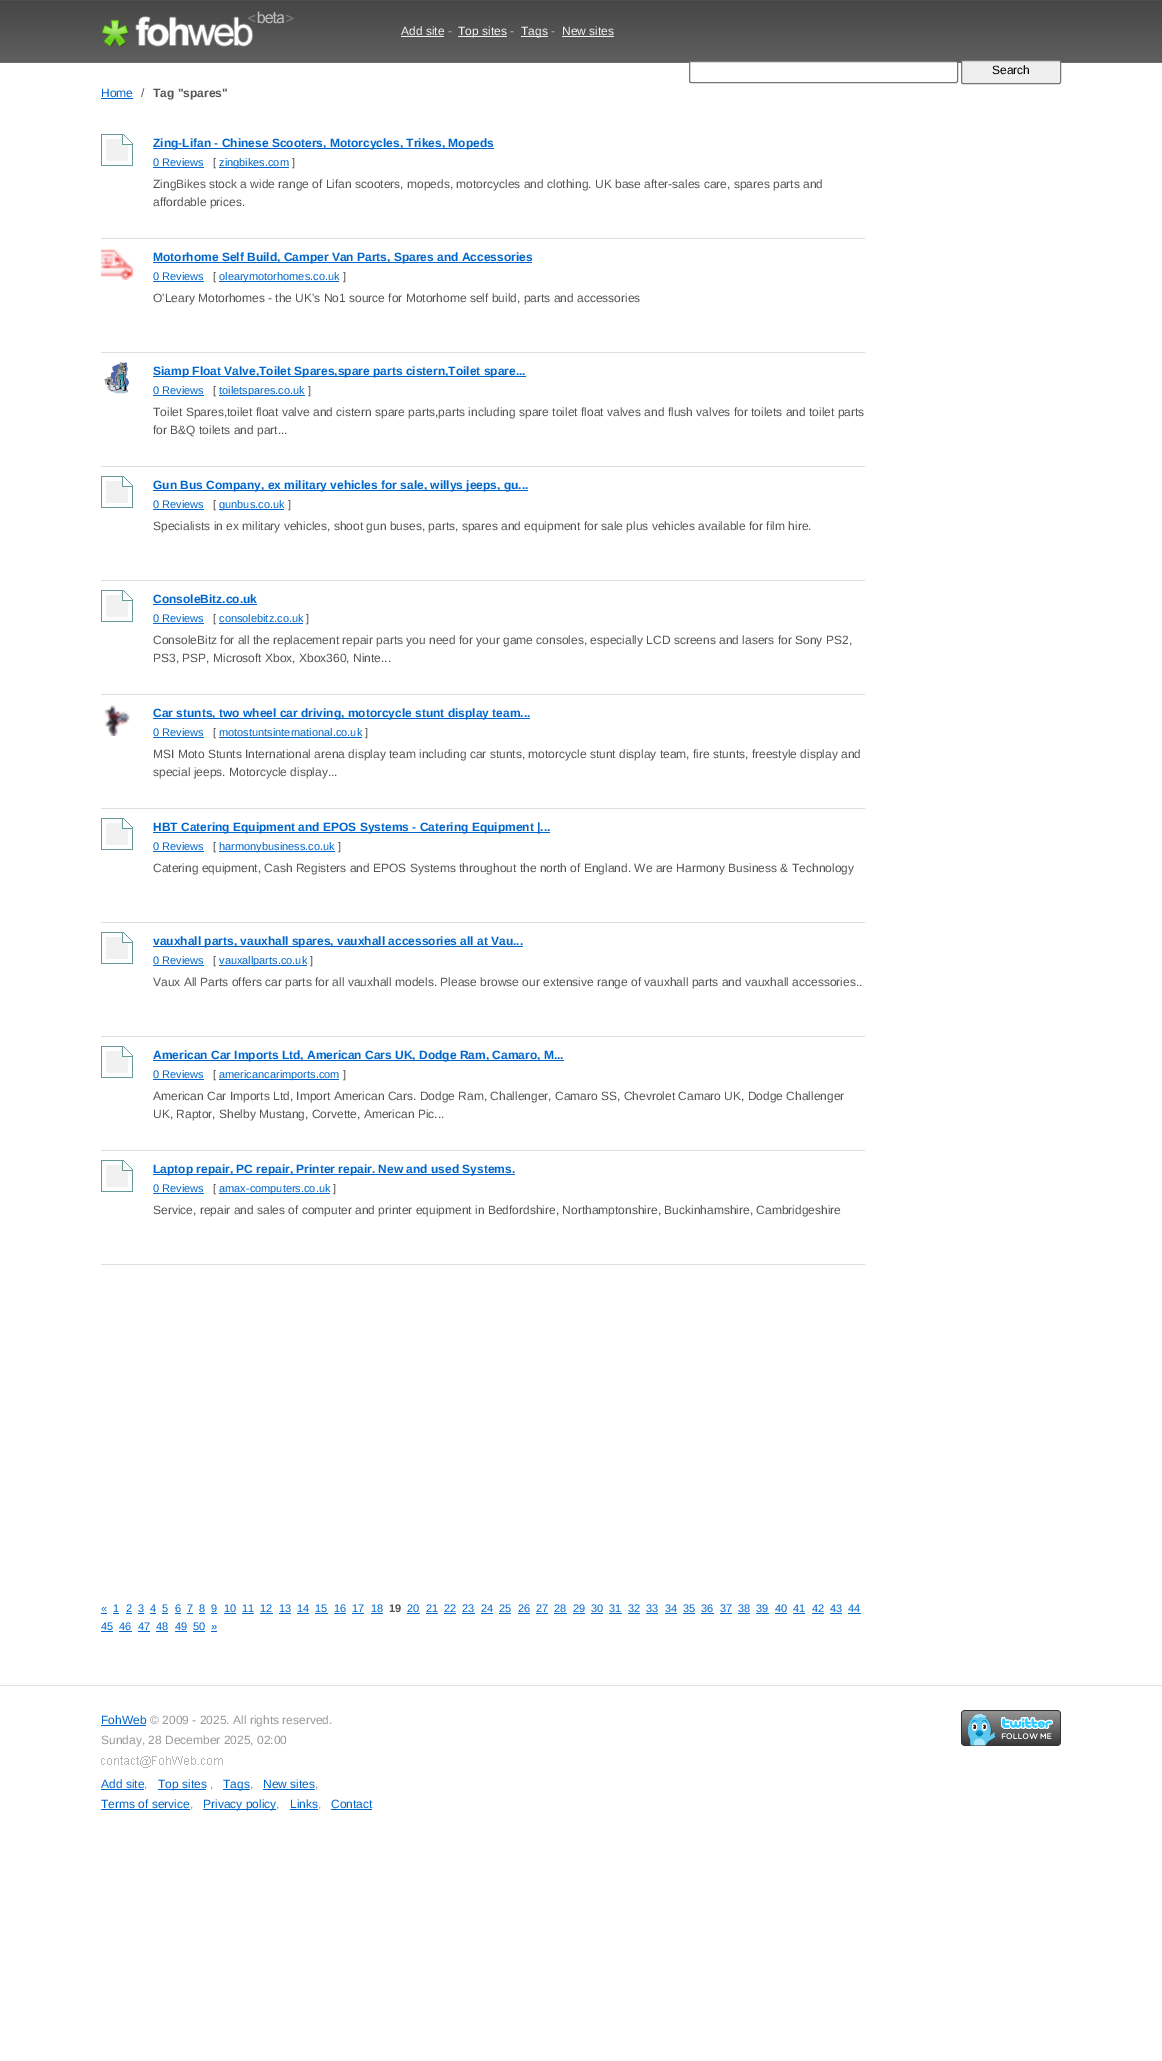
%!PS-Adobe-3.0
%%BoundingBox: 0 0 1162 2061
%%LanguageLevel: 3
%%Pages: 1
%%EndComments
%%BeginProlog
/setink { dup -16 bitshift 255 div exch dup -8 bitshift 255 and 255 div exch 255 and 255 div setrgbcolor } def
/usefont { [ exch dup neg 0 0 3 -1 roll 0 0 ] selectfont } def
/rrect { 5 dict begin { /r /h /w /y /x } { exch def } forall
  x r add y moveto x w add y 2 copy h add r arct x w add y h add x 1 index r arct
  x y h add x y r arct x y 2 copy exch w add exch r arct closepath end } def
/drawimage { 5 dict begin { /h /w /y /x /name } { exch def } forall
  gsave x y translate w h scale
  w h 8 [w 0 0 h 0 0] name (r) file false 3 colorimage grestore end } def
%%EndProlog
%%BeginSetup
<< /PageSize [1162 2061] >> setpagedevice
%%EndSetup
%%Page: 1 1
0 2061 translate 1 -1 scale
4 setmiterlimit
16#FFFFFF setink
0 0 1162 2061 rectfill
(img1.raw) 0 0 1162 63 drawimage
(img2.raw) 101 11 193 36 drawimage
/LiberationSans-Regular 12 usefont
16#F3F3F3 setink
401 35 moveto (Add site) show
401 36 43 1 rectfill
16#B6B6B6 setink
448 35 moveto (-) show
16#F3F3F3 setink
458 36 49 1 rectfill
458 35 moveto (Top sites) show
16#B6B6B6 setink
510 35 moveto (-) show
16#F3F3F3 setink
521 36 27 1 rectfill
521 35 moveto (Tags) show
16#B6B6B6 setink
551 35 moveto (-) show
16#F3F3F3 setink
562 35 moveto (New sites) show
562 36 52 1 rectfill
16#FFFFFF setink
689.5 61.5 268 21 1.5 rrect gsave fill grestore
16#767676 setink
stroke
16#EFEFEF setink
961.5 60.5 99 23 1.5 rrect gsave fill grestore
16#767676 setink
stroke
16#000000 setink
992 74 moveto (Search) show
16#0066CC setink
101 97 moveto (Home) show
101 98 32 1 rectfill
16#555555 setink
141 97 moveto (/) show
/LiberationSans-Bold 12 usefont
153 97 moveto (Tag "spares") show
16#DEDEDE setink
101 238 764 1 rectfill
(img3.raw) 101 134 32 32 drawimage
16#0066CC setink
153 148 341 1 rectfill
153 147 moveto (Zing-Lifan - Chinese Scooters, Motorcycles, Trikes, Mopeds) show
/LiberationSans-Regular 11 usefont
153 166 moveto (0 Reviews) show
153 167 51 1 rectfill
16#555555 setink
213 166 moveto ([) show
16#0066CC setink
219 167 70 1 rectfill
219 166 moveto (zingbikes.com) show
16#555555 setink
292 166 moveto (]) show
/LiberationSans-Regular 12 usefont
153 188 moveto (ZingBikes stock a wide range of Lifan scooters, mopeds, motorcycles and clothing. UK base after-sales care, spares parts and) show
153 206 moveto (affordable prices.) show
16#DEDEDE setink
101 352 764 1 rectfill
(img4.raw) 101 248 32 32 drawimage
16#0066CC setink
153 262 379 1 rectfill
/LiberationSans-Bold 12 usefont
153 261 moveto (Motorhome Self Build, Camper Van Parts, Spares and Accessories) show
/LiberationSans-Regular 11 usefont
153 280 moveto (0 Reviews) show
153 281 51 1 rectfill
16#555555 setink
213 280 moveto ([) show
16#0066CC setink
219 281 120 1 rectfill
219 280 moveto (olearymotorhomes.co.uk) show
16#555555 setink
343 280 moveto (]) show
/LiberationSans-Regular 12 usefont
153 302 moveto (O'Leary Motorhomes - the UK's No1 source for Motorhome self build, parts and accessories) show
16#DEDEDE setink
101 466 764 1 rectfill
(img5.raw) 104 362 26 32 drawimage
16#0066CC setink
153 376 373 1 rectfill
/LiberationSans-Bold 12 usefont
153 375 moveto (Siamp Float Valve,Toilet Spares,spare parts cistern,Toilet spare...) show
/LiberationSans-Regular 11 usefont
153 394 moveto (0 Reviews) show
153 395 51 1 rectfill
16#555555 setink
213 394 moveto ([) show
16#0066CC setink
219 395 86 1 rectfill
219 394 moveto (toiletspares.co.uk) show
16#555555 setink
308 394 moveto (]) show
/LiberationSans-Regular 12 usefont
153 416 moveto (Toilet Spares,toilet float valve and cistern spare parts,parts including spare toilet float valves and flush valves for toilets and toilet parts) show
153 434 moveto (for B&Q toilets and part...) show
16#DEDEDE setink
101 580 764 1 rectfill
(img3.raw) 101 476 32 32 drawimage
16#0066CC setink
153 490 375 1 rectfill
/LiberationSans-Bold 12 usefont
153 489 moveto (Gun Bus Company, ex military vehicles for sale, willys jeeps, gu...) show
/LiberationSans-Regular 11 usefont
153 508 moveto (0 Reviews) show
153 509 51 1 rectfill
16#555555 setink
213 508 moveto ([) show
16#0066CC setink
219 509 65 1 rectfill
219 508 moveto (gunbus.co.uk) show
16#555555 setink
288 508 moveto (]) show
/LiberationSans-Regular 12 usefont
153 530 moveto (Specialists in ex military vehicles, shoot gun buses, parts, spares and equipment for sale plus vehicles available for film hire.) show
16#DEDEDE setink
101 694 764 1 rectfill
(img3.raw) 101 590 32 32 drawimage
/LiberationSans-Bold 12 usefont
16#0066CC setink
153 603 moveto (ConsoleBitz.co.uk) show
153 604 104 1 rectfill
/LiberationSans-Regular 11 usefont
153 622 moveto (0 Reviews) show
153 623 51 1 rectfill
16#555555 setink
213 622 moveto ([) show
16#0066CC setink
219 622 moveto (consolebitz.co.uk) show
219 623 84 1 rectfill
16#555555 setink
306 622 moveto (]) show
/LiberationSans-Regular 12 usefont
153 644 moveto (ConsoleBitz for all the replacement repair parts you need for your game consoles, especially LCD screens and lasers for Sony PS2,) show
153 662 moveto (PS3, PSP, Microsoft Xbox, Xbox360, Ninte...) show
16#DEDEDE setink
101 808 764 1 rectfill
(img6.raw) 104 705 26 31 drawimage
16#0066CC setink
153 718 377 1 rectfill
/LiberationSans-Bold 12 usefont
153 717 moveto (Car stunts, two wheel car driving, motorcycle stunt display team...) show
/LiberationSans-Regular 11 usefont
153 736 moveto (0 Reviews) show
153 737 51 1 rectfill
16#555555 setink
213 736 moveto ([) show
16#0066CC setink
219 736 moveto (motostuntsinternational.co.uk) show
219 737 143 1 rectfill
16#555555 setink
365 736 moveto (]) show
/LiberationSans-Regular 12 usefont
153 758 moveto (MSI Moto Stunts International arena display team including car stunts, motorcycle stunt display team, fire stunts, freestyle display and) show
153 776 moveto (special jeeps. Motorcycle display...) show
16#DEDEDE setink
101 922 764 1 rectfill
(img3.raw) 101 818 32 32 drawimage
16#0066CC setink
153 832 397 1 rectfill
/LiberationSans-Bold 12 usefont
153 831 moveto (HBT Catering Equipment and EPOS Systems - Catering Equipment |...) show
/LiberationSans-Regular 11 usefont
153 850 moveto (0 Reviews) show
153 851 51 1 rectfill
16#555555 setink
213 850 moveto ([) show
16#0066CC setink
219 851 116 1 rectfill
219 850 moveto (harmonybusiness.co.uk) show
16#555555 setink
338 850 moveto (]) show
/LiberationSans-Regular 12 usefont
153 872 moveto (Catering equipment, Cash Registers and EPOS Systems throughout the north of England. We are Harmony Business & Technology) show
16#DEDEDE setink
101 1036 764 1 rectfill
(img3.raw) 101 932 32 32 drawimage
16#0066CC setink
153 946 370 1 rectfill
/LiberationSans-Bold 12 usefont
153 945 moveto (vauxhall parts, vauxhall spares, vauxhall accessories all at Vau...) show
/LiberationSans-Regular 11 usefont
153 964 moveto (0 Reviews) show
153 965 51 1 rectfill
16#555555 setink
213 964 moveto ([) show
16#0066CC setink
219 965 88 1 rectfill
219 964 moveto (vauxallparts.co.uk) show
16#555555 setink
310 964 moveto (]) show
/LiberationSans-Regular 12 usefont
153 986 moveto (Vaux All Parts offers car parts for all vauxhall models. Please browse our extensive range of vauxhall parts and vauxhall accessories..) show
16#DEDEDE setink
101 1150 764 1 rectfill
(img3.raw) 101 1046 32 32 drawimage
16#0066CC setink
153 1060 411 1 rectfill
/LiberationSans-Bold 12 usefont
153 1059 moveto (American Car Imports Ltd, American Cars UK, Dodge Ram, Camaro, M...) show
/LiberationSans-Regular 11 usefont
153 1078 moveto (0 Reviews) show
153 1079 51 1 rectfill
16#555555 setink
213 1078 moveto ([) show
16#0066CC setink
219 1079 120 1 rectfill
219 1078 moveto (americancarimports.com) show
16#555555 setink
343 1078 moveto (]) show
/LiberationSans-Regular 12 usefont
153 1100 moveto (American Car Imports Ltd, Import American Cars. Dodge Ram, Challenger, Camaro SS, Chevrolet Camaro UK, Dodge Challenger) show
153 1118 moveto (UK, Raptor, Shelby Mustang, Corvette, American Pic...) show
16#DEDEDE setink
101 1264 764 1 rectfill
(img3.raw) 101 1160 32 32 drawimage
16#0066CC setink
153 1174 362 1 rectfill
/LiberationSans-Bold 12 usefont
153 1173 moveto (Laptop repair, PC repair, Printer repair. New and used Systems.) show
/LiberationSans-Regular 11 usefont
153 1192 moveto (0 Reviews) show
153 1193 51 1 rectfill
16#555555 setink
213 1192 moveto ([) show
16#0066CC setink
219 1193 111 1 rectfill
219 1192 moveto (amax-computers.co.uk) show
16#555555 setink
333 1192 moveto (]) show
/LiberationSans-Regular 12 usefont
153 1214 moveto (Service, repair and sales of computer and printer equipment in Bedfordshire, Northamptonshire, Buckinhamshire, Cambridgeshire) show
/LiberationSans-Regular 11 usefont
16#0066CC setink
101 1612 moveto («) show
101 1613 6 1 rectfill
113 1612 moveto (1) show
113 1613 6 1 rectfill
126 1612 moveto (2) show
126 1613 6 1 rectfill
138 1612 moveto (3) show
138 1613 6 1 rectfill
150 1612 moveto (4) show
150 1613 6 1 rectfill
162 1612 moveto (5) show
162 1613 6 1 rectfill
175 1612 moveto (6) show
175 1613 6 1 rectfill
187 1612 moveto (7) show
187 1613 6 1 rectfill
199 1612 moveto (8) show
199 1613 6 1 rectfill
211 1612 moveto (9) show
211 1613 6 1 rectfill
224 1612 moveto (10) show
224 1613 12 1 rectfill
242 1612 moveto (11) show
242 1613 12 1 rectfill
260 1612 moveto (12) show
260 1613 13 1 rectfill
279 1612 moveto (13) show
279 1613 12 1 rectfill
297 1612 moveto (14) show
297 1613 12 1 rectfill
315 1612 moveto (15) show
315 1613 13 1 rectfill
334 1612 moveto (16) show
334 1613 12 1 rectfill
352 1612 moveto (17) show
352 1613 12 1 rectfill
371 1612 moveto (18) show
371 1613 12 1 rectfill
/LiberationSans-Bold 11 usefont
16#555555 setink
389 1612 moveto (19) show
/LiberationSans-Regular 11 usefont
16#0066CC setink
407 1612 moveto (20) show
407 1613 13 1 rectfill
426 1612 moveto (21) show
426 1613 12 1 rectfill
444 1612 moveto (22) show
444 1613 12 1 rectfill
462 1612 moveto (23) show
462 1613 13 1 rectfill
481 1612 moveto (24) show
481 1613 12 1 rectfill
499 1612 moveto (25) show
499 1613 12 1 rectfill
518 1612 moveto (26) show
518 1613 12 1 rectfill
536 1612 moveto (27) show
536 1613 12 1 rectfill
554 1612 moveto (28) show
554 1613 13 1 rectfill
573 1612 moveto (29) show
573 1613 12 1 rectfill
591 1612 moveto (30) show
591 1613 12 1 rectfill
609 1612 moveto (31) show
609 1613 13 1 rectfill
628 1612 moveto (32) show
628 1613 12 1 rectfill
646 1612 moveto (33) show
646 1613 12 1 rectfill
665 1612 moveto (34) show
665 1613 12 1 rectfill
683 1612 moveto (35) show
683 1613 12 1 rectfill
701 1612 moveto (36) show
701 1613 13 1 rectfill
720 1612 moveto (37) show
720 1613 12 1 rectfill
738 1612 moveto (38) show
738 1613 12 1 rectfill
756 1612 moveto (39) show
756 1613 13 1 rectfill
775 1612 moveto (40) show
775 1613 12 1 rectfill
793 1612 moveto (41) show
793 1613 12 1 rectfill
812 1612 moveto (42) show
812 1613 12 1 rectfill
830 1612 moveto (43) show
830 1613 12 1 rectfill
848 1612 moveto (44) show
848 1613 13 1 rectfill
101 1630 moveto (45) show
101 1631 12 1 rectfill
119 1630 moveto (46) show
119 1631 13 1 rectfill
138 1630 moveto (47) show
138 1631 12 1 rectfill
156 1630 moveto (48) show
156 1631 12 1 rectfill
175 1630 moveto (49) show
175 1631 12 1 rectfill
193 1630 moveto (50) show
193 1631 12 1 rectfill
211 1630 moveto (») show
211 1631 6 1 rectfill
16#E2E2E2 setink
0 1685 1162 1 rectfill
/LiberationSans-Regular 12 usefont
16#0066CC setink
101 1724 moveto (FohWeb) show
101 1725 45 1 rectfill
16#999999 setink
150 1724 moveto (© 2009 - 2025. All rights reserved.) show
101 1744 moveto (Sunday, 28 December 2025, 02:00) show
(img7.raw) 101 1756 122 12 drawimage
16#0066CC setink
101 1788 moveto (Add site) show
101 1789 43 1 rectfill
16#999999 setink
144 1788 moveto (,) show
16#0066CC setink
158 1789 48 1 rectfill
158 1788 moveto (Top sites) show
16#999999 setink
210 1788 moveto (,) show
16#0066CC setink
223 1789 27 1 rectfill
223 1788 moveto (Tags) show
16#999999 setink
250 1788 moveto (,) show
16#0066CC setink
263 1788 moveto (New sites) show
263 1789 52 1 rectfill
16#999999 setink
315 1788 moveto (,) show
16#0066CC setink
101 1808 moveto (Terms of service) show
101 1809 89 1 rectfill
16#999999 setink
190 1808 moveto (,) show
16#0066CC setink
203 1809 73 1 rectfill
203 1808 moveto (Privacy policy) show
16#999999 setink
276 1808 moveto (,) show
16#0066CC setink
290 1808 moveto (Links) show
290 1809 28 1 rectfill
16#999999 setink
318 1808 moveto (,) show
16#0066CC setink
331 1808 moveto (Contact) show
331 1809 41 1 rectfill
(img8.raw) 961 1710 100 36 drawimage
showpage
%%EOF
